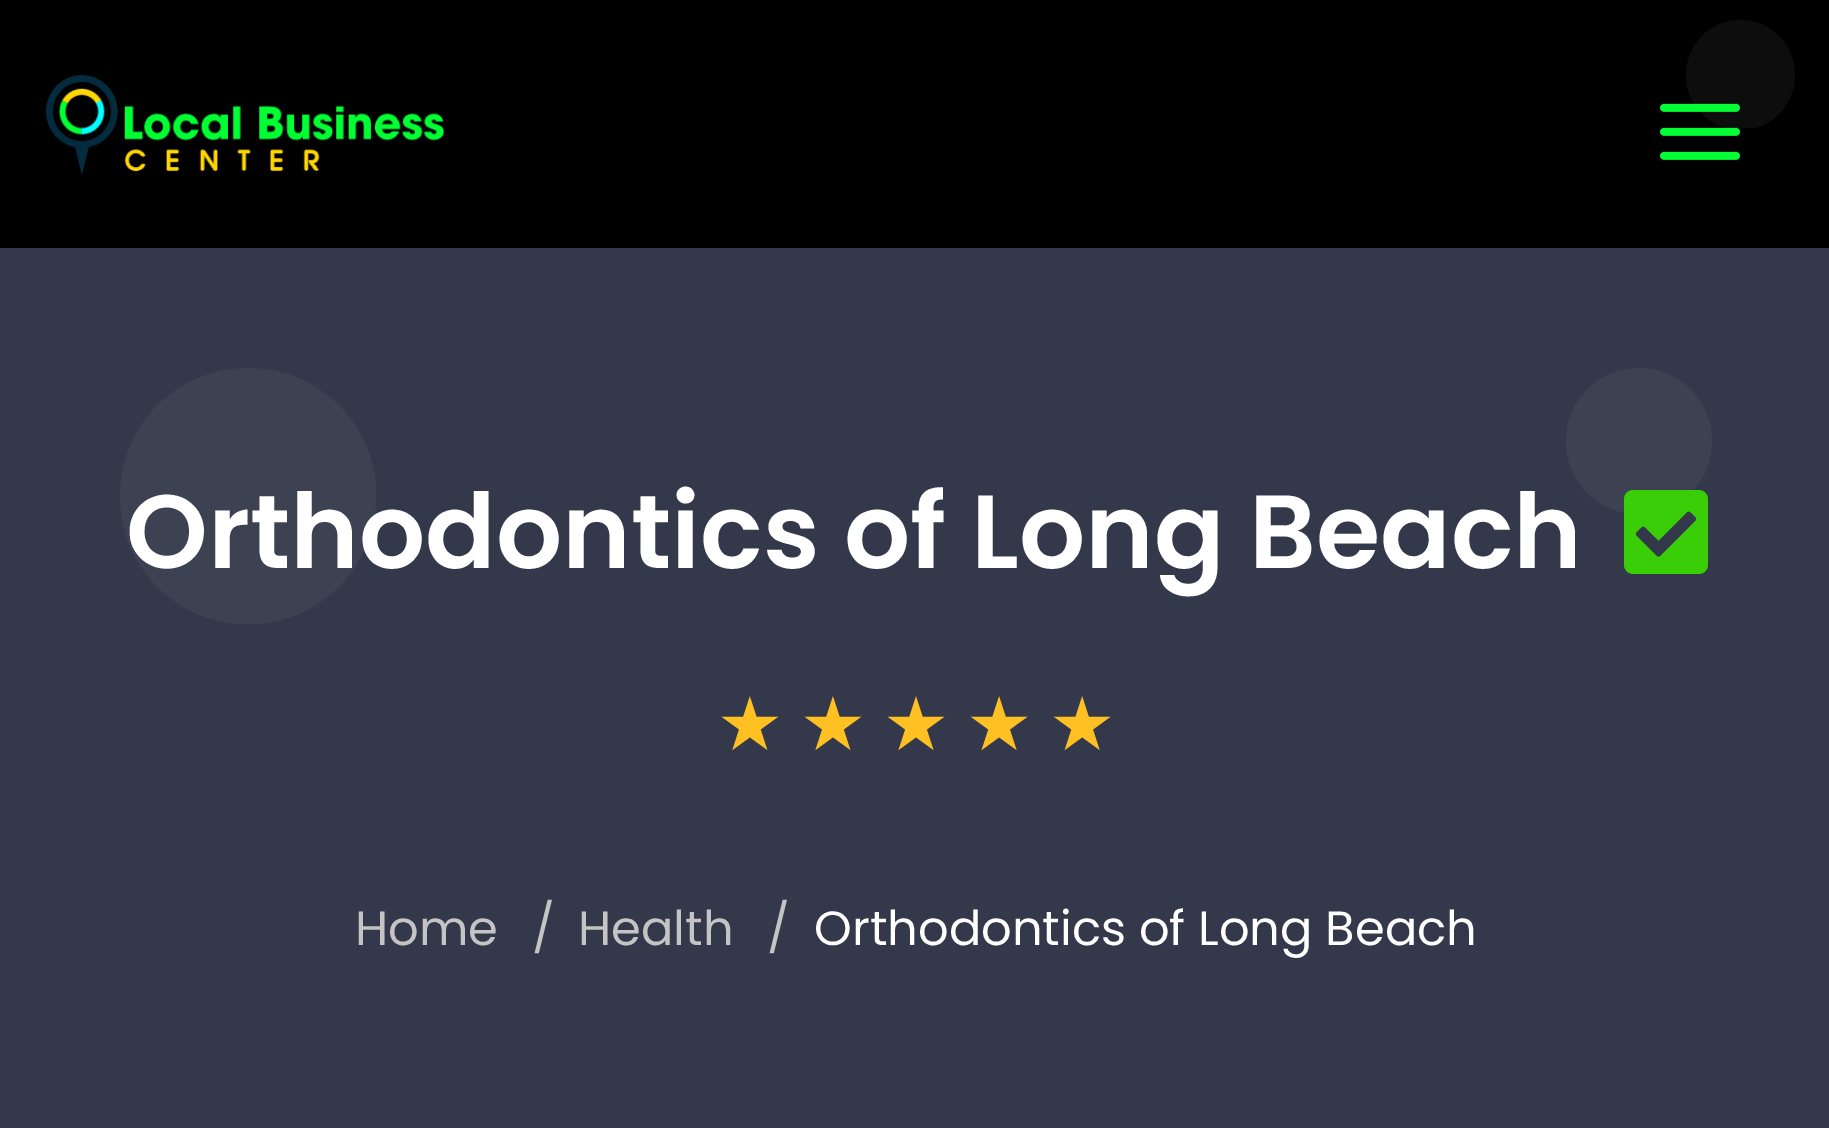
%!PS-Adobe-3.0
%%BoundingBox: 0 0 1829 1128
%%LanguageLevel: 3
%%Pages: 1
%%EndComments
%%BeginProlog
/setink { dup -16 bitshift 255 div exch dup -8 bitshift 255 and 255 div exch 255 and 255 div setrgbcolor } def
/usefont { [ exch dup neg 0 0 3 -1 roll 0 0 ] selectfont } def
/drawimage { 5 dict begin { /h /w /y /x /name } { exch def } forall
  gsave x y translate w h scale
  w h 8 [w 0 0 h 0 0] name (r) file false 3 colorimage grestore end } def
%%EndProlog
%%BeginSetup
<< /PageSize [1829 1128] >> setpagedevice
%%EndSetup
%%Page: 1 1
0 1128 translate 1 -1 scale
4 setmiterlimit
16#33394A setink
0 0 1829 1128 rectfill
16#000000 setink
0 0 1829 248 rectfill
(img1.raw) 46 75 398 100 drawimage
16#0D0D0D setink
1740 20 moveto 1771 20 1795 45 1795 75 curveto 1795 100 1778 122 1755 128 curveto 1726 128 lineto 1703 122 1686 100 1686 75 curveto 1686 45 1710 20 1740 20 curveto closepath fill
(img2.raw) 1660 103 80 57 drawimage
16#3D4253 setink
248 368 moveto 316 368 371 420 376 486 curveto 376 506 lineto 371 569 321 619 258 624 curveto 238 624 lineto 172 619 120 564 120 496 curveto 120 425 177 368 248 368 curveto closepath fill
1639 368 moveto 1679 368 1712 401 1712 441 curveto 1712 482 1679 514 1639 514 curveto 1598 514 1566 482 1566 441 curveto 1566 401 1598 368 1639 368 curveto closepath fill
/Poppins-SemiBold 104 usefont
16#FFFFFF setink
126 568 moveto (Orthodontics of Long Beach) show
(img3.raw) 1624 490 84 84 drawimage
(img4.raw) 721 696 390 55 drawimage
/Poppins-Regular 48 usefont
16#C4C4C4 setink
[
    [(Home) 355 945]
    [(/) 532 945]
    [(Health) 578 945]
    [(/) 767 945]
] { aload pop moveto show } forall
16#FFFFFF setink
814 945 moveto (Orthodontics of Long Beach) show
showpage
%%EOF
